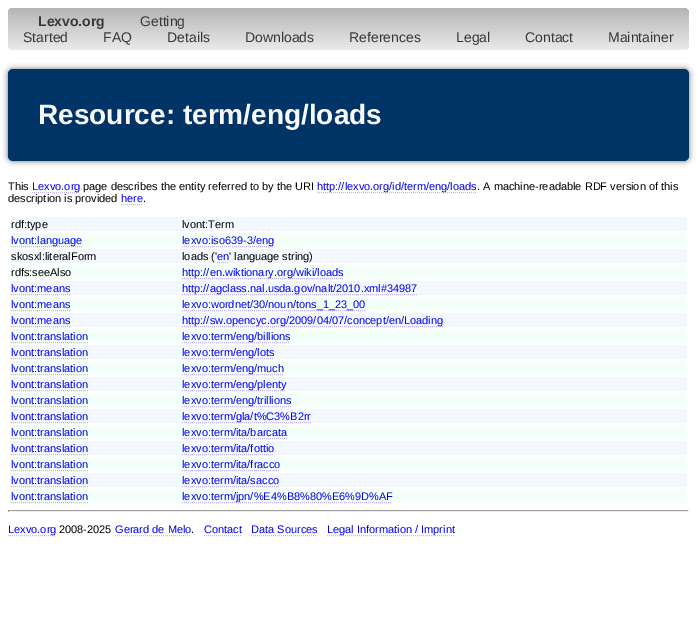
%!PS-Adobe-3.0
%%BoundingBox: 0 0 697 628
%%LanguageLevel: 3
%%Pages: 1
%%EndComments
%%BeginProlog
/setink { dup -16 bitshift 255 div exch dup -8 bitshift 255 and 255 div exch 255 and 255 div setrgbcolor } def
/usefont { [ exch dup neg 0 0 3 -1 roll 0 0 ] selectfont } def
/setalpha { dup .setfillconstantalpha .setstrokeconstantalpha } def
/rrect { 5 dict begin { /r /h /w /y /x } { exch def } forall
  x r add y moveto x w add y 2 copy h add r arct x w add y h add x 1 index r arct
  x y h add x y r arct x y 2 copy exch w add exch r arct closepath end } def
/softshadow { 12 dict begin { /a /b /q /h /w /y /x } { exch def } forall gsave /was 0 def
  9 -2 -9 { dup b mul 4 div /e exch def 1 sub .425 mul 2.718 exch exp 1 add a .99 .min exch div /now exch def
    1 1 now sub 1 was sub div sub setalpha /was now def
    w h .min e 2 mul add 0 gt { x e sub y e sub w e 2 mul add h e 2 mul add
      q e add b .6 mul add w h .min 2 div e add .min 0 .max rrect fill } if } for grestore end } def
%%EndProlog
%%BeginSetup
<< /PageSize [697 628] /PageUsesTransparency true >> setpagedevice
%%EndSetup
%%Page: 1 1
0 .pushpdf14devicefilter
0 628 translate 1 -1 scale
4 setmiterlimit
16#FFFFFF setink
0 0 697 628 rectfill
gsave 8 8 681 42 5 rrect clip newpath
<< /ShadingType 2 /ColorSpace /DeviceRGB /Coords [349 8 349 50] /Extend [true true] /Function << /FunctionType 2 /Domain [0 1] /C0 [0.71 0.71 0.71] /C1 [0.918 0.918 0.918] /N 1 >> >> shfill grestore
/LiberationSans-Bold 14 usefont
16#383838 setink
38 26 moveto (Lexvo.org) show
/LiberationSans-Regular 14 usefont
[
    [(Getting) 140 26]
    [(Started) 23 42]
    [(FAQ) 103 42]
    [(Details) 167 42]
    [(Downloads) 245 42]
    [(References) 349 42]
    [(Legal) 456 42]
    [(Contact) 525 42]
    [(Maintainer) 608 42]
] { aload pop moveto show } forall
16#000000 setink
8 69 681 92 5 3 0.6 softshadow
16#003366 setink
8 69 681 92 5 rrect fill
/LiberationSans-Bold 28 usefont
16#F8F8F8 setink
38 124 moveto (Resource: term/eng/loads) show
/LiberationSans-Regular 11 usefont
16#000000 setink
8 190 moveto (This) show
16#BFB6FF setink
[1 1] 0 setdash
32 192.5 moveto 80 192.5 lineto stroke
16#0000EE setink
32 190 moveto (Lexvo.org) show
16#000000 setink
83 190 moveto (page describes the entity referred to by the URI) show
16#BFB6FF setink
317 192.5 moveto 477 192.5 lineto stroke
16#0000EE setink
317 190 moveto (http://lexvo.org/id/term/eng/loads) show
16#000000 setink
477 190 moveto (. A machine-readable RDF version of this) show
8 202 moveto (description is provided) show
16#0000EE setink
121 202 moveto (here) show
16#BFB6FF setink
121 204.5 moveto 143 204.5 lineto stroke
16#000000 setink
143 202 moveto (.) show
16#F3F8FF setink
10 217 677 14 rectfill
16#000000 setink
11 228 moveto (rdf:type) show
182 228 moveto (lvont:Term) show
16#F3FFF8 setink
10 233 677 14 rectfill
16#BFB6FF setink
11 246.5 moveto 83 246.5 lineto stroke
16#0000EE setink
11 244 moveto (lvont:language) show
16#BFB6FF setink
182 246.5 moveto 274 246.5 lineto stroke
16#0000EE setink
182 244 moveto (lexvo:iso639-3/eng) show
16#F3F8FF setink
10 249 677 14 rectfill
16#000000 setink
11 260 moveto (skosxl:literalForm) show
182 260 moveto (loads \(') show
16#0000EE setink
217 260 moveto (en) show
16#BFB6FF setink
217 262.5 moveto 229 262.5 lineto stroke
16#000000 setink
229 260 moveto (' language string\)) show
16#F3FFF8 setink
10 265 677 14 rectfill
16#000000 setink
11 276 moveto (rdfs:seeAlso) show
16#BFB6FF setink
182 278.5 moveto 343 278.5 lineto stroke
16#0000EE setink
182 276 moveto (http://en.wiktionary.org/wiki/loads) show
16#F3F8FF setink
10 281 677 14 rectfill
16#0000EE setink
11 292 moveto (lvont:means) show
16#BFB6FF setink
11 294.5 moveto 70 294.5 lineto stroke
182 294.5 moveto 417 294.5 lineto stroke
16#0000EE setink
182 292 moveto (http://agclass.nal.usda.gov/nalt/2010.xml#34987) show
16#F3FFF8 setink
10 297 677 14 rectfill
16#0000EE setink
11 308 moveto (lvont:means) show
16#BFB6FF setink
11 310.5 moveto 70 310.5 lineto stroke
182 310.5 moveto 365 310.5 lineto stroke
16#0000EE setink
182 308 moveto (lexvo:wordnet/30/noun/tons_1_23_00) show
16#F3F8FF setink
10 313 677 14 rectfill
16#0000EE setink
11 324 moveto (lvont:means) show
16#BFB6FF setink
11 326.5 moveto 70 326.5 lineto stroke
182 326.5 moveto 443 326.5 lineto stroke
16#0000EE setink
182 324 moveto (http://sw.opencyc.org/2009/04/07/concept/en/Loading) show
16#F3FFF8 setink
10 329 677 14 rectfill
16#0000EE setink
11 340 moveto (lvont:translation) show
16#BFB6FF setink
11 342.5 moveto 88 342.5 lineto stroke
182 342.5 moveto 290 342.5 lineto stroke
16#0000EE setink
182 340 moveto (lexvo:term/eng/billions) show
16#F3F8FF setink
10 345 677 14 rectfill
16#0000EE setink
11 356 moveto (lvont:translation) show
16#BFB6FF setink
11 358.5 moveto 88 358.5 lineto stroke
182 358.5 moveto 274 358.5 lineto stroke
16#0000EE setink
182 356 moveto (lexvo:term/eng/lots) show
16#F3FFF8 setink
10 361 677 14 rectfill
16#0000EE setink
11 372 moveto (lvont:translation) show
16#BFB6FF setink
11 374.5 moveto 88 374.5 lineto stroke
182 374.5 moveto 284 374.5 lineto stroke
16#0000EE setink
182 372 moveto (lexvo:term/eng/much) show
16#F3F8FF setink
10 377 677 14 rectfill
16#0000EE setink
11 388 moveto (lvont:translation) show
16#BFB6FF setink
11 390.5 moveto 88 390.5 lineto stroke
182 390.5 moveto 286 390.5 lineto stroke
16#0000EE setink
182 388 moveto (lexvo:term/eng/plenty) show
16#F3FFF8 setink
10 393 677 14 rectfill
16#0000EE setink
11 404 moveto (lvont:translation) show
16#BFB6FF setink
11 406.5 moveto 88 406.5 lineto stroke
182 406.5 moveto 291 406.5 lineto stroke
16#0000EE setink
182 404 moveto (lexvo:term/eng/trillions) show
16#F3F8FF setink
10 409 677 14 rectfill
16#0000EE setink
11 420 moveto (lvont:translation) show
16#BFB6FF setink
11 422.5 moveto 88 422.5 lineto stroke
182 422.5 moveto 311 422.5 lineto stroke
16#0000EE setink
182 420 moveto (lexvo:term/gla/t%C3%B2rr) show
16#F3FFF8 setink
10 425 677 14 rectfill
16#0000EE setink
11 436 moveto (lvont:translation) show
16#BFB6FF setink
11 438.5 moveto 88 438.5 lineto stroke
16#0000EE setink
182 436 moveto (lexvo:term/ita/barcata) show
16#BFB6FF setink
182 438.5 moveto 287 438.5 lineto stroke
16#F3F8FF setink
10 441 677 14 rectfill
16#0000EE setink
11 452 moveto (lvont:translation) show
16#BFB6FF setink
11 454.5 moveto 88 454.5 lineto stroke
16#0000EE setink
182 452 moveto (lexvo:term/ita/fottio) show
16#BFB6FF setink
182 454.5 moveto 274 454.5 lineto stroke
16#F3FFF8 setink
10 457 677 14 rectfill
16#0000EE setink
11 468 moveto (lvont:translation) show
16#BFB6FF setink
11 470.5 moveto 88 470.5 lineto stroke
16#0000EE setink
182 468 moveto (lexvo:term/ita/fracco) show
16#BFB6FF setink
182 470.5 moveto 280 470.5 lineto stroke
16#F3F8FF setink
10 473 677 14 rectfill
16#0000EE setink
11 484 moveto (lvont:translation) show
16#BFB6FF setink
11 486.5 moveto 88 486.5 lineto stroke
16#0000EE setink
182 484 moveto (lexvo:term/ita/sacco) show
16#BFB6FF setink
182 486.5 moveto 279 486.5 lineto stroke
16#F3FFF8 setink
10 489 677 14 rectfill
16#0000EE setink
11 500 moveto (lvont:translation) show
16#BFB6FF setink
11 502.5 moveto 88 502.5 lineto stroke
182 502.5 moveto 392 502.5 lineto stroke
16#0000EE setink
182 500 moveto (lexvo:term/jpn/%E4%B8%80%E6%9D%AF) show
[
    [8 510 681 1 16#9F9F9F]
    [688 510 1 2 16#EEEEEE]
    [8 511 681 1 16#EEEEEE]
    [8 510 1 2 16#9F9F9F]
] { aload pop setink rectfill } forall
16#BFB6FF setink
8 535.5 moveto 56 535.5 lineto stroke
16#0000EE setink
8 533 moveto (Lexvo.org) show
16#000000 setink
59 533 moveto (2008-2025) show
16#0000EE setink
115 533 moveto (Gerard de Melo) show
16#BFB6FF setink
115 535.5 moveto 191 535.5 lineto stroke
16#000000 setink
191 533 moveto (.) show
16#0000EE setink
204 533 moveto (Contact) show
16#BFB6FF setink
204 535.5 moveto 242 535.5 lineto stroke
16#0000EE setink
251 533 moveto (Data Sources) show
16#BFB6FF setink
251 535.5 moveto 317 535.5 lineto stroke
327 535.5 moveto 454 535.5 lineto stroke
16#0000EE setink
327 533 moveto (Legal Information / Imprint) show
.poppdf14devicefilter showpage
%%EOF
